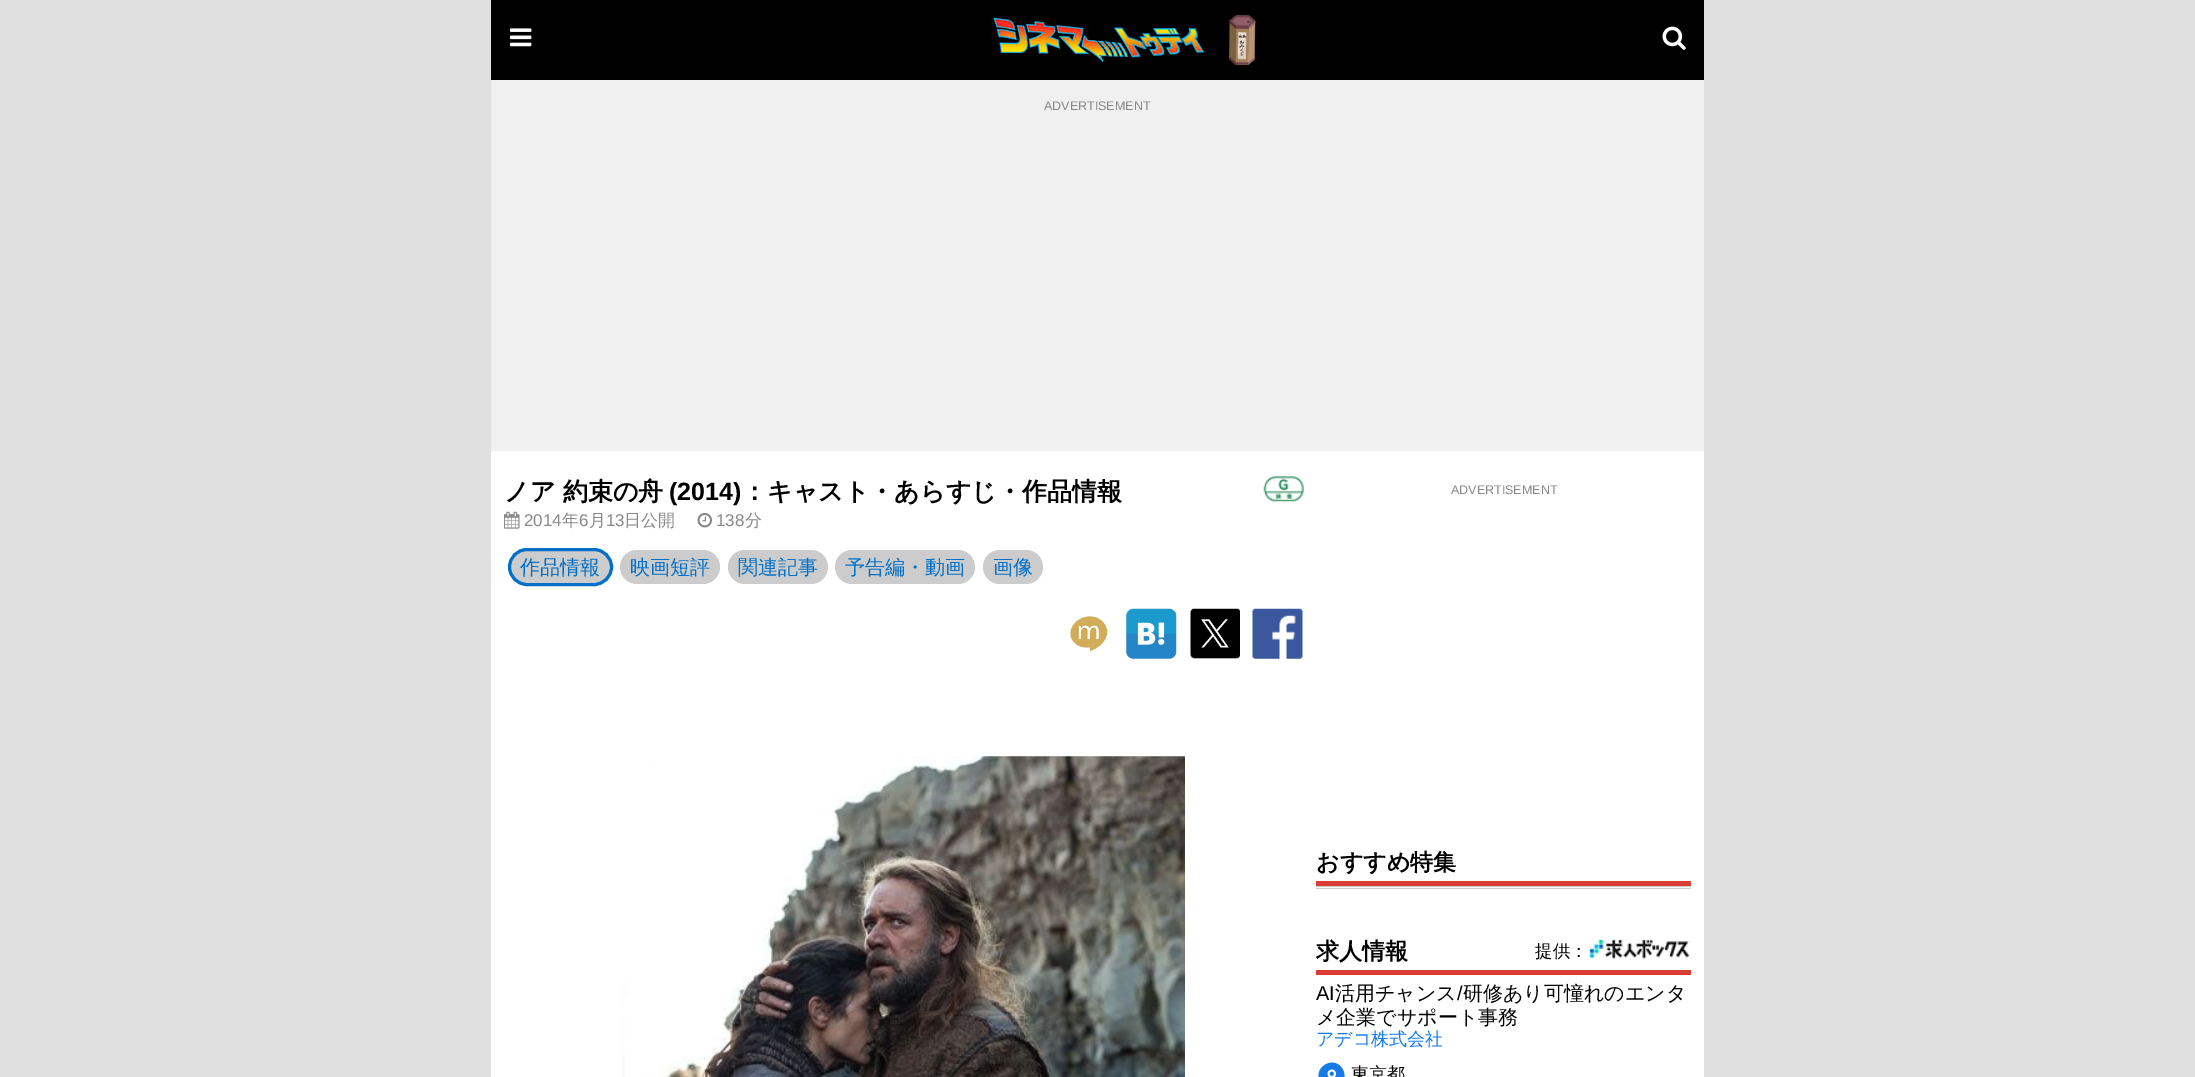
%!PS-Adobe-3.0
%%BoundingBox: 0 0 2195 1077
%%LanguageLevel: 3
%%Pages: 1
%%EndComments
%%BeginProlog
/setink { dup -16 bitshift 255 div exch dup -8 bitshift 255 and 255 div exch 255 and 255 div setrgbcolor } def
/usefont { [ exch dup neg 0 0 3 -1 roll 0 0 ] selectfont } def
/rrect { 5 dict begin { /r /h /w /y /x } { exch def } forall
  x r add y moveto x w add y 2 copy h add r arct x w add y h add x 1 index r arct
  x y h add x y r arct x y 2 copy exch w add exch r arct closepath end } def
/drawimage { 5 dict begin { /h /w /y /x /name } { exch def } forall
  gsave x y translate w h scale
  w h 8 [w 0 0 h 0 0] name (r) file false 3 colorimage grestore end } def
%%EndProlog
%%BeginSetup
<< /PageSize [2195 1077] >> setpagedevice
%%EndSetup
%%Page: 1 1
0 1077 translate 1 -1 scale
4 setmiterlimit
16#E0E0E0 setink
0 0 2195 1077 rectfill
16#FFFFFF setink
491 451 1213 626 rectfill
16#000000 setink
491 0 1213 80 rectfill
(img1.raw) 510 28 22 19 drawimage
(img2.raw) 993 17 211 46 drawimage
(img3.raw) 1228 15 28 50 drawimage
(img4.raw) 1662 26 24 24 drawimage
16#F0F0F0 setink
491 80 1213 371 rectfill
/LiberationSans-Regular 12.5 usefont
16#888888 setink
1044 110 moveto (ADVERTISEMENT) show
/WenQuanYiZenHei-Bold 25 usefont
16#000000 setink
504 500 moveto (ノア 約束の舟) show
/LiberationSans-Bold 25 usefont
669 500 moveto (\(2014\)) show
/WenQuanYiZenHei-Bold 25 usefont
742 500 moveto (：キャスト・あらすじ・作品情報) show
(img5.raw) 1263 476 41 26 drawimage
(img6.raw) 504 511 16 18 drawimage
/LiberationSans-Regular 17 usefont
16#888888 setink
524 526 moveto (2014) show
/WenQuanYiZenHei-Medium 17 usefont
562 526 moveto (年) show
/LiberationSans-Regular 17 usefont
579 526 moveto (6) show
/WenQuanYiZenHei-Medium 17 usefont
589 526 moveto (月) show
/LiberationSans-Regular 17 usefont
606 526 moveto (13) show
/WenQuanYiZenHei-Medium 17 usefont
624 526 moveto (日公開) show
(img7.raw) 697 512 15 16 drawimage
/LiberationSans-Regular 17 usefont
716 526 moveto (138) show
/WenQuanYiZenHei-Medium 17 usefont
745 526 moveto (分) show
16#CCCCCC setink
509.5 549.5 102 35 17.5 rrect gsave fill grestore
16#0070C9 setink
3 setlinewidth
stroke
/WenQuanYiZenHei-Medium 20 usefont
520 574 moveto (作品情報) show
16#CCCCCC setink
620 550 100 34 17 rrect fill
16#0070C9 setink
630 574 moveto (映画短評) show
16#CCCCCC setink
728 550 100 34 17 rrect fill
16#0070C9 setink
738 574 moveto (関連記事) show
16#CCCCCC setink
835 550 140 34 17 rrect fill
16#0070C9 setink
845 574 moveto (予告編・動画) show
16#CCCCCC setink
983 550 60 34 17 rrect fill
16#0070C9 setink
993 574 moveto (画像) show
(img8.raw) 1070 616 38 36 drawimage
(img9.raw) 1126 608 51 51 drawimage
(img10.raw) 1190 608 50 51 drawimage
(img11.raw) 1252 608 51 51 drawimage
(img12.raw) 622 756 563 321 drawimage
/LiberationSans-Regular 12.5 usefont
16#888888 setink
1451 494 moveto (ADVERTISEMENT) show
16#DC3C36 setink
1316 881 375 5 rectfill
/WenQuanYiZenHei-Bold 23 usefont
16#000000 setink
1316 870 moveto (おすすめ特集) show
[
    [1316 886 375 1 16#CCCCCC]
    [1316 888 375 1 16#CCCCCC]
    [1316 970 375 5 16#DC3C36]
] { aload pop setink rectfill } forall
16#000000 setink
1316 959 moveto (求人情報) show
/WenQuanYiZenHei-Medium 17.5 usefont
1535 957 moveto (提供：) show
(img13.raw) 1589 939 100 20 drawimage
/LiberationSans-Regular 20 usefont
1316 1000 moveto (AI) show
/WenQuanYiZenHei-Medium 20 usefont
1335 1000 moveto (活用チャンス) show
/LiberationSans-Regular 20 usefont
1457 1000 moveto (/) show
/WenQuanYiZenHei-Medium 20 usefont
1463 1000 moveto (研修あり可憧れのエンタ) show
1316 1024 moveto (メ企業でサポート事務) show
/WenQuanYiZenHei-Medium 18 usefont
16#147BE9 setink
1316 1045 moveto (アデコ株式会社) show
1320.5 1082 moveto 1312 1067.5 1334 1054.5 1342.5 1069 curveto 1351 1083.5 1329 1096.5 1320.5 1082 curveto closepath fill
(img14.raw) 1327 1069 10 8 drawimage
16#000000 setink
1351 1080 moveto (東京都) show
showpage
%%EOF
